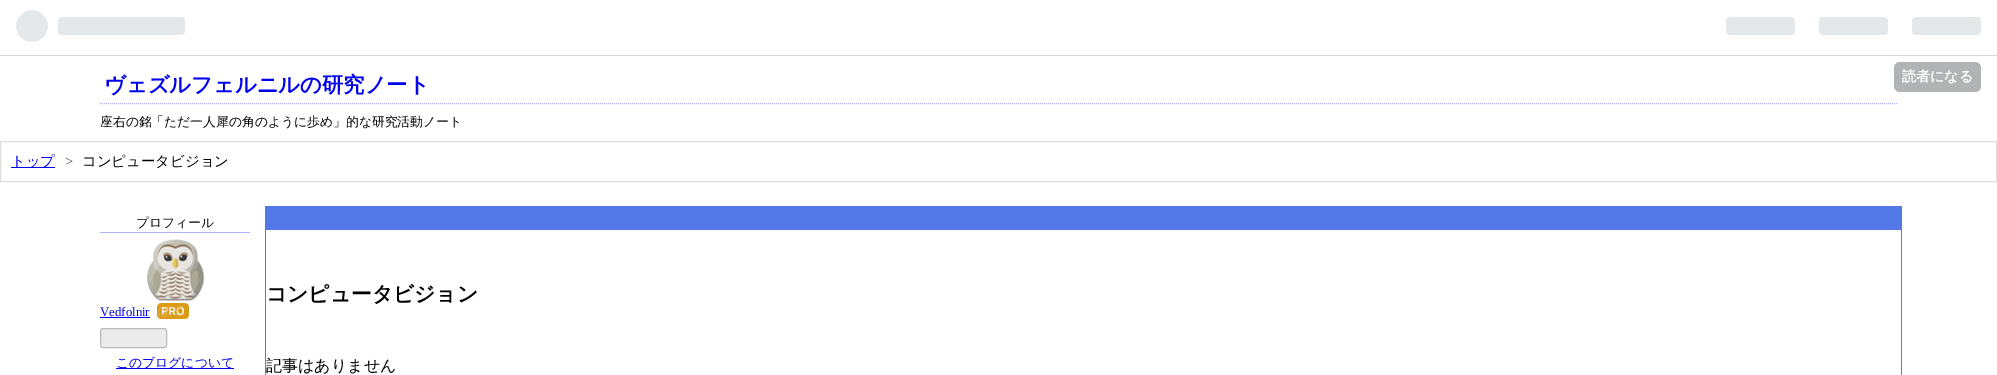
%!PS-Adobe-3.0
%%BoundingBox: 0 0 1997 375
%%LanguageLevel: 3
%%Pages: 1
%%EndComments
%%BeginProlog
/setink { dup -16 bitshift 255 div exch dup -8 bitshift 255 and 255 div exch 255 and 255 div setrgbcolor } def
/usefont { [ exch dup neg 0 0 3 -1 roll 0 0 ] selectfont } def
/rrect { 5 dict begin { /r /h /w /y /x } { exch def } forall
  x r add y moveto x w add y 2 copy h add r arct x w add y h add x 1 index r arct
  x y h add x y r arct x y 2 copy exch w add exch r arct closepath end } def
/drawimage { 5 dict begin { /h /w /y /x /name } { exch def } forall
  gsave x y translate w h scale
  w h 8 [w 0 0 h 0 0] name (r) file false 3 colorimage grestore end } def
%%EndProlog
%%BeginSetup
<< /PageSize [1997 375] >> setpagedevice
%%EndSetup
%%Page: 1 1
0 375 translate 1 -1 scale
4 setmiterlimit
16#FFFFFF setink
0 0 1997 375 rectfill
16#D2D8DD setink
0 55 1997 1 rectfill
(img1.raw) 16 10 169 32 drawimage
(img2.raw) 1726 17 255 18 drawimage
16#ADB2FF setink
[1 1] 0 setdash
100 103.5 moveto 1897 103.5 lineto stroke
/WenQuanYiZenHei-Bold 21.3 usefont
16#0000EE setink
104 92 moveto (ヴェズルフェルニルの研究ノート) show
/WenQuanYiZenHei-Medium 12.8 usefont
16#000000 setink
100 126 moveto (座右の銘「ただ一人犀の角のように歩め」的な研究活動ノート) show
16#DDDDDD setink
[] 0 setdash
0.5 141.5 1996 40 rectstroke
16#0000EE setink
11 167 44 1 rectfill
/WenQuanYiZenHei-Medium 14.4 usefont
11 166 moveto (トップ) show
/LiberationSerif-Regular 14.4 usefont
16#4D4D4D setink
65 166 moveto (>) show
/WenQuanYiZenHei-Medium 14.4 usefont
16#000000 setink
82 166 moveto (コンピュータビジョン) show
16#ADB2FF setink
100 232 150 1 rectfill
/WenQuanYiZenHei-Medium 12.8 usefont
16#000000 setink
136 227 moveto (プロフィール) show
(img3.raw) 146 239 59 62 drawimage
/LiberationSerif-Regular 12.8 usefont
16#0000EE setink
100 316 moveto (Vedfolnir) show
100 317 50 1 rectfill
(img4.raw) 157 303 32 16 drawimage
/WenQuanYiZenHei-MediumItalic 12.8 usefont
16#E3B04A setink
157 315 moveto (はて) show
16#EBEBEB setink
100.5 328.5 66 19 2.5 rrect gsave fill grestore
16#BBBBBB setink
stroke
16#0000EE setink
116 368 118 1 rectfill
/WenQuanYiZenHei-Medium 12.8 usefont
116 367 moveto (このブログについて) show
[
    [266 206 1635 24 16#5279E7]
    [1901 206 1 169 16#5279E7]
    [265 206 1 169 16#5279E7]
] { aload pop setink rectfill } forall
/WenQuanYiZenHei-Bold 20.75 usefont
16#000000 setink
266 301 moveto (コンピュータビジョン) show
/WenQuanYiZenHei-Medium 16 usefont
266 371 moveto (記事はありません) show
16#B1B3B5 setink
1894 62 87 30 6 rrect fill
/WenQuanYiZenHei-Bold 14 usefont
16#FFFFFF setink
1902 81 moveto (読者になる) show
showpage
%%EOF
